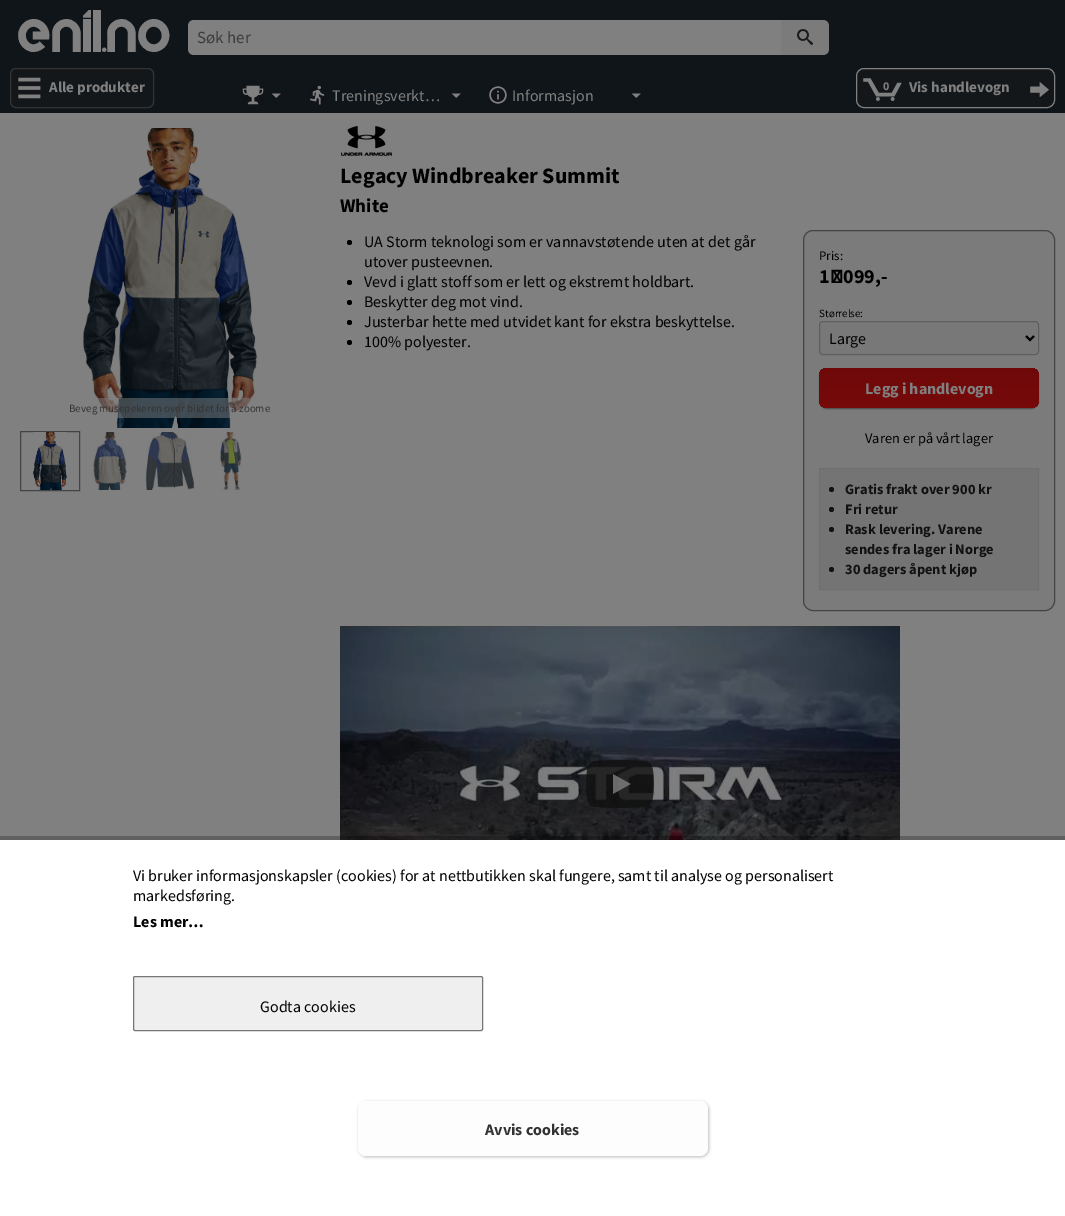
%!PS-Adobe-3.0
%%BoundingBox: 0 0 1065 1216
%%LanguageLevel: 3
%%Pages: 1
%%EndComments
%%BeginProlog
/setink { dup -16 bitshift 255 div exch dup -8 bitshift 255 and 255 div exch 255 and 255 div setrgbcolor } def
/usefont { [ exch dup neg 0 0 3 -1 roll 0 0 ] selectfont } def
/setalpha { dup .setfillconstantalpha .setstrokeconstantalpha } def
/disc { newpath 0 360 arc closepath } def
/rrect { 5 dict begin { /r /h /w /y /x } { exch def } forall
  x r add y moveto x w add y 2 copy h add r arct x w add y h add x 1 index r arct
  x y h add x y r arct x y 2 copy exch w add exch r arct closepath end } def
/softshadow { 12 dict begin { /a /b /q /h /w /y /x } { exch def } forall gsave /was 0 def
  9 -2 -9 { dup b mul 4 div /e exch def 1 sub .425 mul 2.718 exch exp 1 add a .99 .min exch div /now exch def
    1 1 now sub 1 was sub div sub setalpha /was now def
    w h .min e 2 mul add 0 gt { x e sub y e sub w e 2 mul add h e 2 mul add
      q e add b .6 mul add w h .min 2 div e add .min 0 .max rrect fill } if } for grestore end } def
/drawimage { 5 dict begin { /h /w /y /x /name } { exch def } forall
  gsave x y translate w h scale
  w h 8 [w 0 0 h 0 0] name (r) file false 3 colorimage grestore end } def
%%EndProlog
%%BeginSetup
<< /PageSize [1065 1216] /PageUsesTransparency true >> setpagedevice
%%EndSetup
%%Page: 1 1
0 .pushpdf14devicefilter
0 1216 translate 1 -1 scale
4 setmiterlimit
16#808080 setink
0 0 1065 1216 rectfill
16#101519 setink
0 0 1065 113 rectfill
/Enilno-Regular 56 usefont
16#808080 setink
17 52 moveto (e) show
51 52 moveto (nil.no) show
194 20 moveto 781 20 lineto 781 55 lineto 194 55 lineto 190.5 55 188 52.5 188 49 curveto 188 26 lineto 188 22.5 190.5 20 194 20 curveto closepath fill
/SourceSansPro-Regular 17 usefont
16#3B3B3B setink
197 43 moveto (Søk her) show
16#7B7B7B setink
781 20 moveto 823 20 lineto 826.5 20 829 22.5 829 26 curveto 829 49 lineto 829 52.5 826.5 55 823 55 curveto 781 55 lineto closepath fill
(img1.raw) 797 29 16 16 drawimage
16#141719 setink
10.5 68.5 143 39 5.5 rrect gsave fill grestore
16#333333 setink
stroke
(img2.raw) 18 77 23 22 drawimage
/SourceSansPro-Bold 15 usefont
16#808080 setink
49 92 moveto (Alle produkter) show
16#141719 setink
856.5 68.5 198 39 7.5 rrect gsave fill grestore
16#808080 setink
stroke
(img3.raw) 863 78 39 23 drawimage
/SourceSansPro-Bold 12 usefont
883 90 moveto (0) show
/SourceSansPro-Bold 15 usefont
909 92 moveto (Vis handlevogn) show
(img4.raw) 1030 82 19 15 drawimage
(img5.raw) 242 85 22 20 drawimage
(img6.raw) 271 93 10 5 drawimage
(img7.raw) 310 85 15 20 drawimage
/SourceSansPro-Regular 16 usefont
332 101 moveto (Treningsverkt…) show
(img6.raw) 451 93 10 5 drawimage
(img8.raw) 489 86 18 18 drawimage
512 101 moveto (Informasjon) show
(img6.raw) 631 93 10 5 drawimage
(img9.raw) 341 126 51 30 drawimage
/SourceSansPro-Bold 22 usefont
16#000000 setink
340 183 moveto (Legacy Windbreaker Summit) show
/SourceSansPro-Bold 19 usefont
340 212 moveto (White) show
(img10.raw) 83 128 175 300 drawimage
0.5 setalpha
16#808080 setink
97 398 155 20 rectfill
/SourceSansPro-Regular 11 usefont
1 setalpha
16#333333 setink
69 412 moveto (Beveg musepekeren over bildet for å zoome) show
16#444444 setink
20.5 431.5 59 59 rectstroke
(img11.raw) 33 432 34 58 drawimage
(img12.raw) 93 432 34 58 drawimage
(img13.raw) 145 432 50 58 drawimage
(img14.raw) 219 432 23 58 drawimage
16#000000 setink
349.5 242.5 2.5 disc fill
/SourceSansPro-Regular 16 usefont
364 247 moveto (UA Storm teknologi som er vannavstøtende uten at det går) show
364 267 moveto (utover pusteevnen.) show
349.5 282.5 2.5 disc fill
364 287 moveto (Vevd i glatt stoff som er lett og ekstremt holdbart.) show
349.5 302.5 2.5 disc fill
364 307 moveto (Beskytter deg mot vind.) show
349.5 322.5 2.5 disc fill
364 327 moveto (Justerbar hette med utvidet kant for ekstra beskyttelse.) show
349.5 342.5 2.5 disc fill
364 347 moveto (100% polyester.) show
16#7B7B7B setink
803.5 230.5 251 380 9.5 rrect gsave fill grestore
16#444444 setink
stroke
/SourceSansPro-Regular 13 usefont
16#000000 setink
819 260 moveto (Pris:) show
/SourceSansPro-Bold 20 usefont
819 283 moveto (1 099,-) show
/SourceSansPro-Regular 11 usefont
819 317 moveto (Størrelse:) show
16#787878 setink
819.5 321.5 219 33 3.5 rrect gsave fill grestore
16#5E5E5E setink
stroke
16#000000 setink
2 setlinewidth
1026 336 moveto 1030 340 lineto 1034 336 lineto stroke
/SourceSansPro-Regular 16 usefont
829 344 moveto (Large) show
819 369 220 40 8 1.5 0.12 softshadow
819 369 220 40 8 0.5 0.14 softshadow
820 371 218 38 7 0.5 0.2 softshadow
gsave 819 368 220 40 8 rrect clip newpath
<< /ShadingType 2 /ColorSpace /DeviceRGB /Coords [929 368 929 408] /Extend [true true] /Function << /FunctionType 2 /Domain [0 1] /C0 [0.435 0.035 0.035] /C1 [0.467 0.035 0.035] /N 1 >> >> shfill grestore
/SourceSansPro-Bold 16 usefont
16#808080 setink
865 394 moveto (Legg i handlevogn) show
/SourceSansPro-Regular 14.4 usefont
16#000000 setink
865 443 moveto (Varen er på vårt lager) show
16#747474 setink
819.5 468.5 moveto 1038.5 468.5 lineto 1038.5 589.5 lineto 819.5 589.5 lineto closepath gsave fill grestore
16#6F6F6F setink
1 setlinewidth
stroke
16#111111 setink
831.5 489.5 2.5 disc fill
/SourceSansPro-Bold 14.4 usefont
845 494 moveto (Gratis frakt over 900 kr) show
831.5 509.5 2.5 disc fill
845 514 moveto (Fri retur) show
831.5 529.5 2.5 disc fill
845 534 moveto (Rask levering. Varene) show
845 554 moveto (sendes fra lager i Norge) show
831.5 569.5 2.5 disc fill
845 574 moveto (30 dagers åpent kjøp) show
(img15.raw) 340 626 560 214 drawimage
(img16.raw) 586 760 68 48 drawimage
0.25 setalpha
16#000000 setink
0 836 1065 4 rectfill
1 setalpha
16#FFFFFF setink
0 840 1065 376 rectfill
/SourceSansPro-Regular 16 usefont
16#000000 setink
133 881 moveto (Vi bruker informasjonskapsler \(cookies\) for at nettbutikken skal fungere, samt til analyse og personalisert) show
133 901 moveto (markedsføring.) show
/SourceSansPro-Bold 16 usefont
133 927 moveto (Les mer…) show
16#EFEFEF setink
133.5 976.5 349 54 1.5 rrect gsave fill grestore
16#767676 setink
stroke
/SourceSansPro-Regular 16 usefont
16#000000 setink
260 1012 moveto (Godta cookies) show
359 1102 350 55 8 1.5 0.25 softshadow
16#FDFDFD setink
358 1101 350 55 8 rrect fill
/SourceSansPro-Bold 16 usefont
16#333333 setink
485 1135 moveto (Avvis cookies) show
.poppdf14devicefilter showpage
%%EOF
